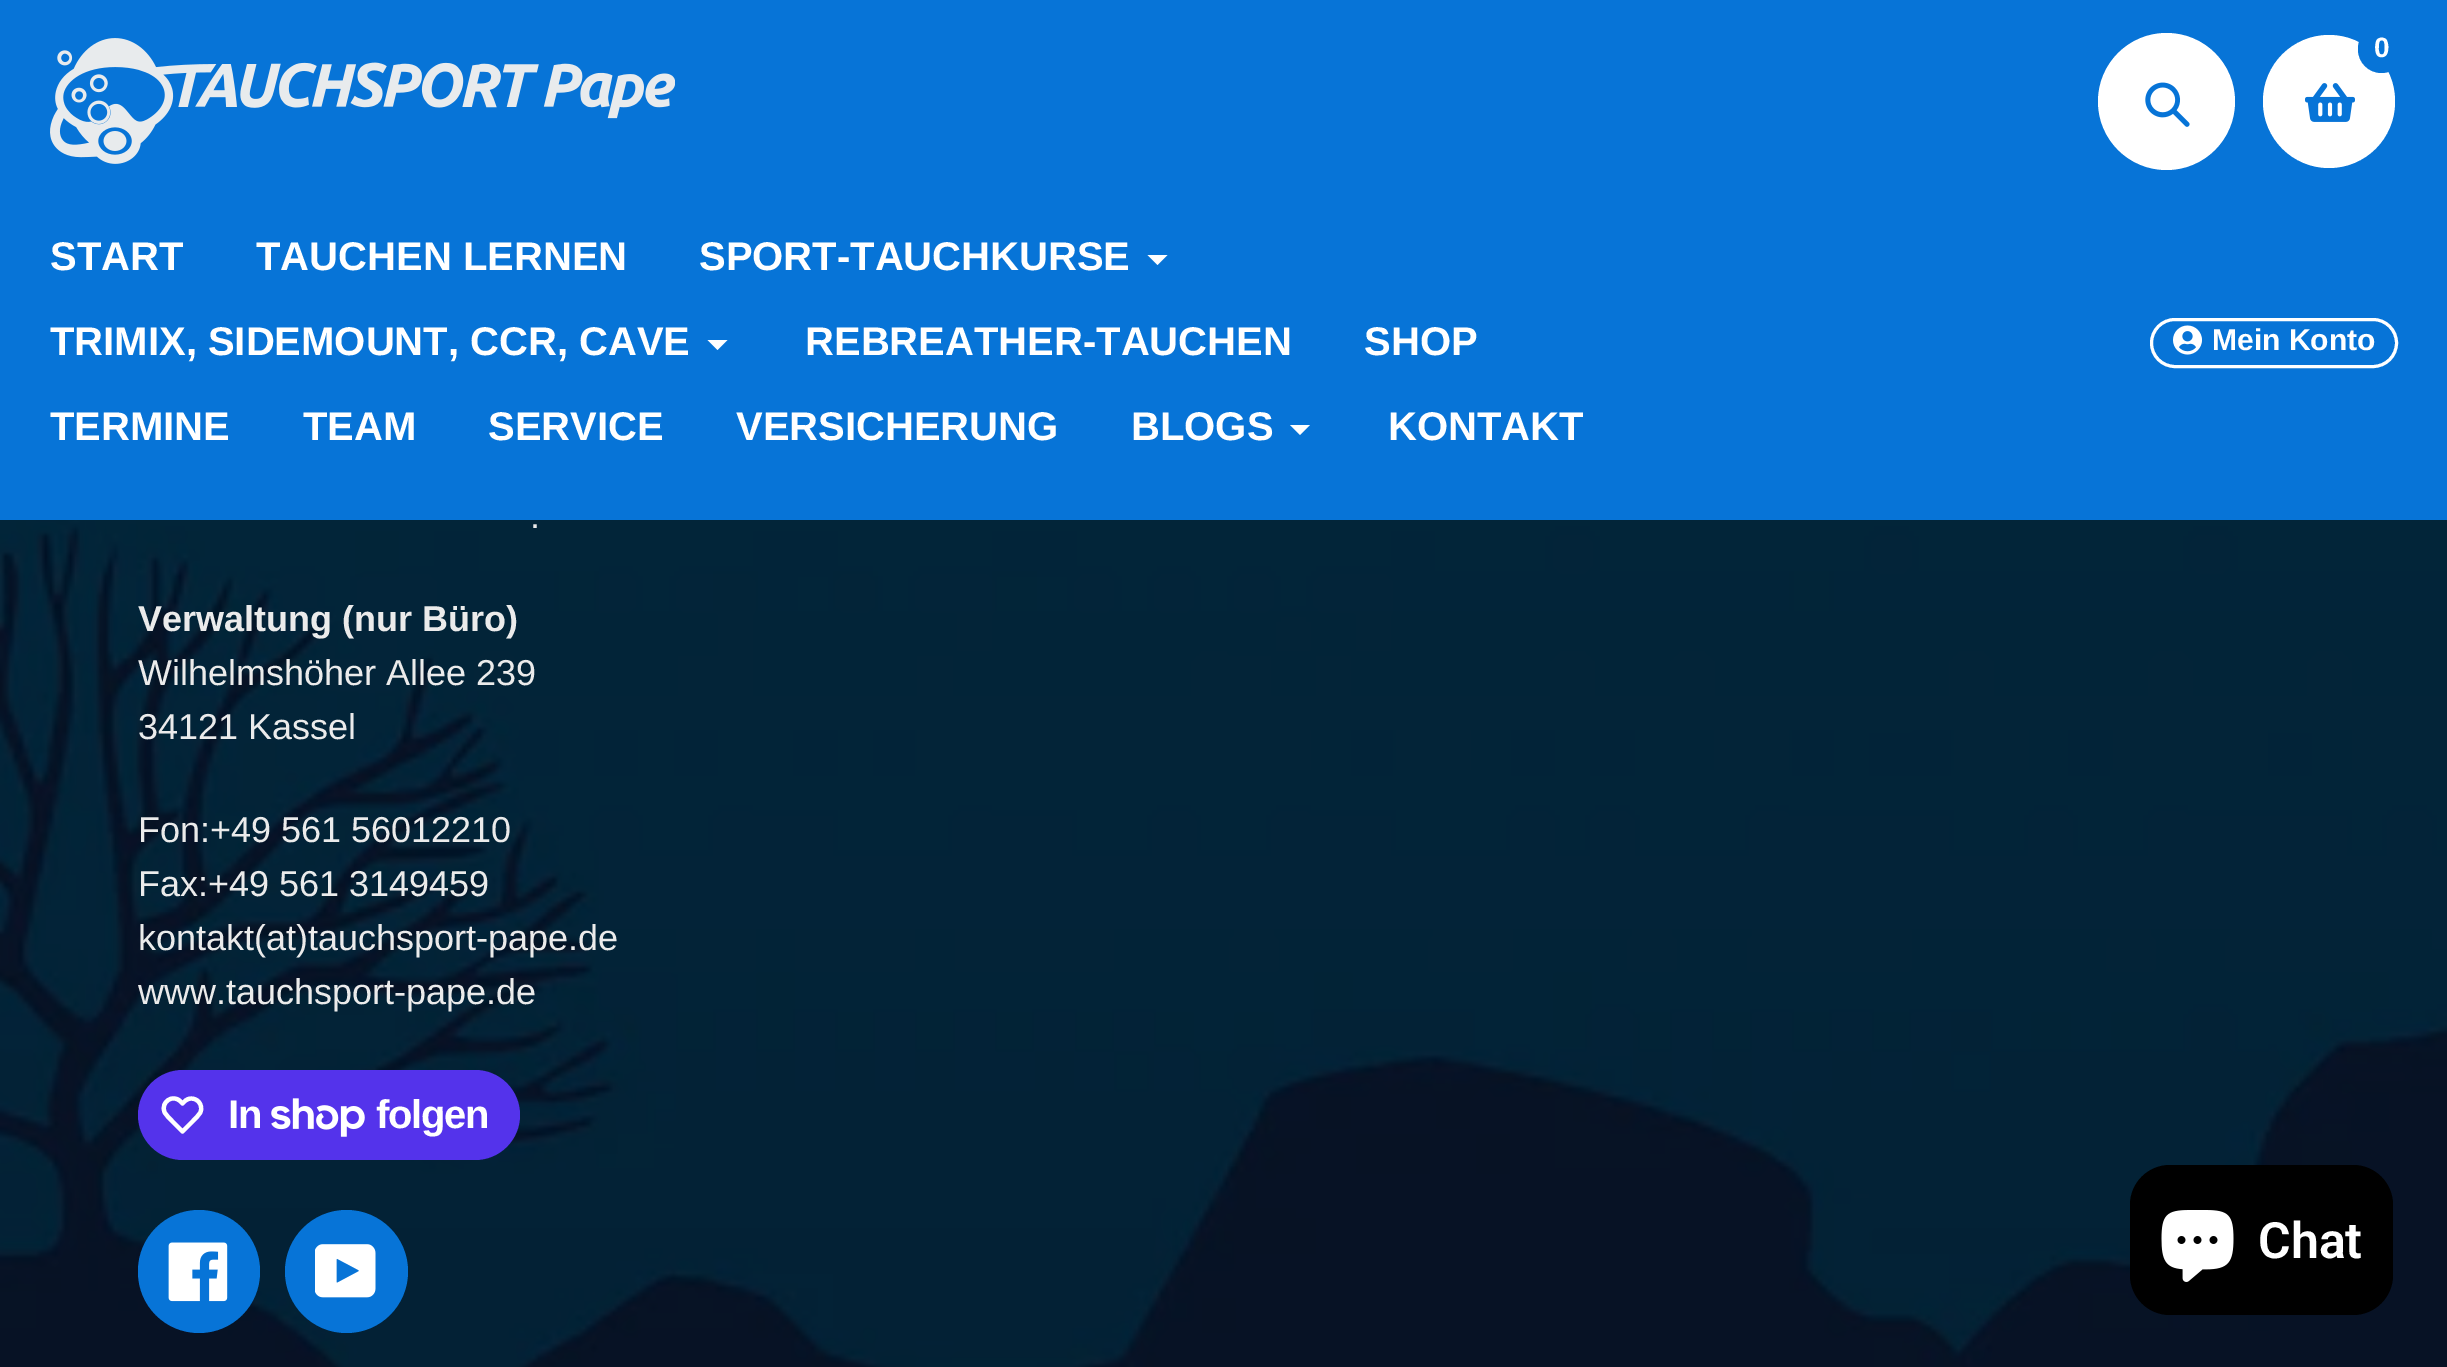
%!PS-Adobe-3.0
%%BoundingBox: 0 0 2447 1367
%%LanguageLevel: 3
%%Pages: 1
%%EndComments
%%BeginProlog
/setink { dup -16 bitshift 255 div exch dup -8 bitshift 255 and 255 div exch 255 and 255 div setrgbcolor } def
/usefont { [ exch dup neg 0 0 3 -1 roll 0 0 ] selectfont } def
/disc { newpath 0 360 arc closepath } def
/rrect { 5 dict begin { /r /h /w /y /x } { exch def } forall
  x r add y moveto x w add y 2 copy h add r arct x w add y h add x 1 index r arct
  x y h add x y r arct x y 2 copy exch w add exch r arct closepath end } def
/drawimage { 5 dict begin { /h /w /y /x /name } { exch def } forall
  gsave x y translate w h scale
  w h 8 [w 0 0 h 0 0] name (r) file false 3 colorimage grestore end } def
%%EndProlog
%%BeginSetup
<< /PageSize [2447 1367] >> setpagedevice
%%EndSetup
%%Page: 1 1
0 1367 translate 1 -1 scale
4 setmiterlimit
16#000000 setink
0 0 2447 1367 rectfill
16#0774D7 setink
0 0 2447 520 rectfill
(img1.raw) 50 38 625 126 drawimage
16#FFFFFF setink
2166.5 101.5 68.5 disc fill
(img2.raw) 2145 82 45 45 drawimage
2263 35 132 133 66 rrect fill
16#0774D7 setink
2358 25 47 48 23.5 rrect fill
/LiberationSans-Bold 28 usefont
16#FFFFFF setink
2374 57 moveto (0) show
(img3.raw) 2305 83 50 39 drawimage
/LiberationSans-Bold 40 usefont
[
    [(START) 50 270]
    [(TAUCHEN LERNEN) 256 270]
    [(SPORT-TAUCHKURSE) 699 270]
] { aload pop moveto show } forall
1167.5 255 moveto 1157.5 265 lineto 1147.5 255 lineto fill
50 355 moveto (TRIMIX, SIDEMOUNT, CCR, CAVE) show
727.5 340 moveto 717.5 350 lineto 707.5 340 lineto fill
[
    [(REBREATHER-TAUCHEN) 805 355]
    [(SHOP) 1364 355]
    [(TERMINE) 50 440]
    [(TEAM) 303 440]
    [(SERVICE) 488 440]
    [(VERSICHERUNG) 736 440]
    [(BLOGS) 1131 440]
] { aload pop moveto show } forall
1310 425 moveto 1300 435 lineto 1290 425 lineto fill
1388 440 moveto (KONTAKT) show
3 setlinewidth
2151.5 319.5 245 47 23.5 rrect stroke
(img4.raw) 2173 325 29 30 drawimage
/LiberationSans-Bold 30 usefont
2212 350 moveto (Mein Konto) show
(img5.raw) 0 520 2447 847 drawimage
/LiberationSans-Regular 36 usefont
16#EBEBEB setink
530 528 moveto (.) show
/LiberationSans-Bold 36 usefont
138 631 moveto (Verwaltung \(nur Büro\)) show
/LiberationSans-Regular 36 usefont
[
    [(Wilhelmshöher Allee 239) 138 685]
    [(34121 Kassel) 138 739]
    [(Fon:+49 561 56012210) 138 842]
    [(Fax:+49 561 3149459) 138 896]
    [(kontakt\(at\)tauchsport-pape.de) 138 950]
    [(www.tauchsport-pape.de) 138 1004]
] { aload pop moveto show } forall
16#5433EB setink
138 1070 382 90 45 rrect fill
16#FFFFFF setink
4.2 setlinewidth
1 setlinejoin
180.5 1101.5 moveto 182.5 1103.5 lineto 184.5 1101.5 186 1099.5 188.5 1099 curveto 196.5 1096.5 203.5 1104.5 200.5 1112 curveto 199 1115.5 195.5 1118 193 1121 curveto 182.5 1131.5 lineto 172 1121 lineto 169.5 1118 166 1115.5 164.5 1112 curveto 160.5 1102 173 1093.5 180.5 1101.5 curveto closepath stroke
/LiberationSans-Bold 40 usefont
228 1128 moveto -1.25 0 (In) ashow
(img6.raw) 271 1098 94 39 drawimage
376 1128 moveto -1.25 0 (folgen) ashow
16#0774D7 setink
138 1210 122 123 61 rrect fill
(img7.raw) 168 1242 60 60 drawimage
346.5 1271.5 61.5 disc fill
(img8.raw) 315 1244 61 54 drawimage
16#000000 setink
2130 1165 263 150 40 rrect fill
(img9.raw) 2161 1210 73 72 drawimage
/Roboto-SemiBold 50 usefont
16#FFFFFF setink
2258 1258 moveto (Chat) show
showpage
%%EOF
